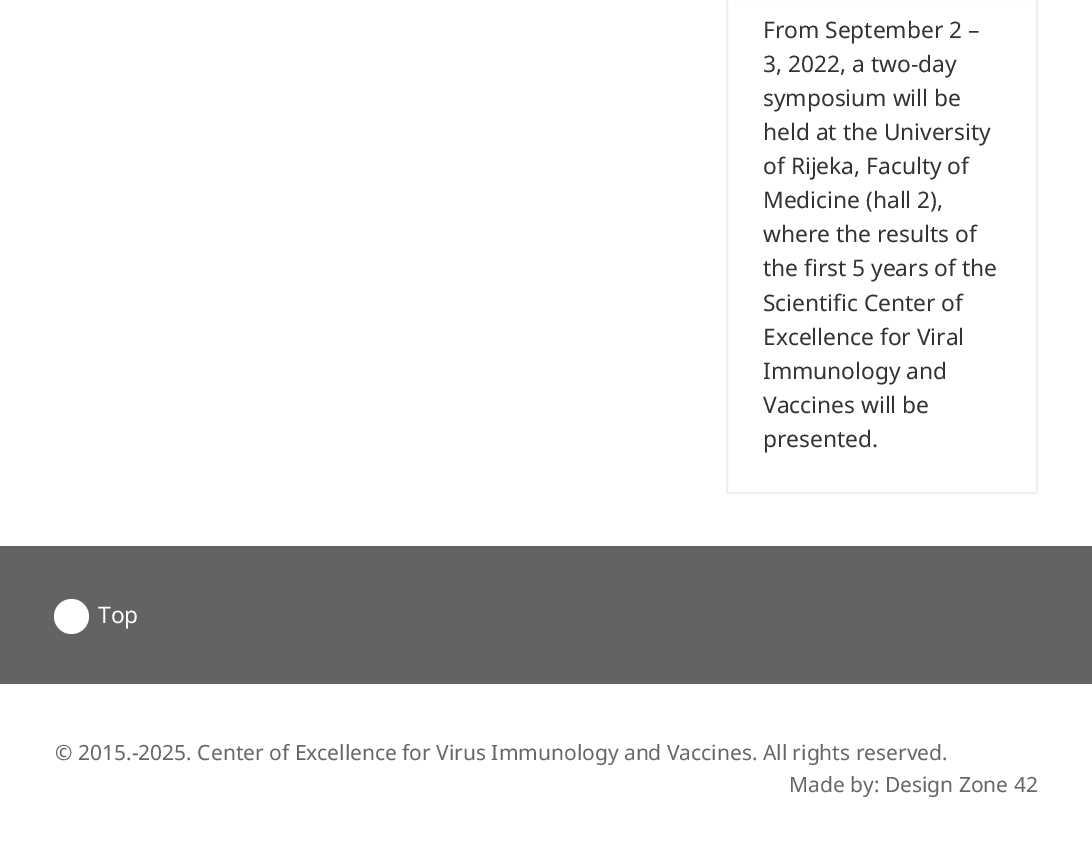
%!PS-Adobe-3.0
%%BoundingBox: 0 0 1092 852
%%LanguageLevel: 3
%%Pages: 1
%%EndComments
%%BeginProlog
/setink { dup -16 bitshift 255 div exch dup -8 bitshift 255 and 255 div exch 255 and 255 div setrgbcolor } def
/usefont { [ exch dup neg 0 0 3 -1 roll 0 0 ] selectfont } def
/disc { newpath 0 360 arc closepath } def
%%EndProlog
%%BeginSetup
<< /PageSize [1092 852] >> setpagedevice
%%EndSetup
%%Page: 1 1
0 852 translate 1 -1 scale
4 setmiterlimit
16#FFFFFF setink
0 0 1092 852 rectfill
16#F0F0F3 setink
2 setlinewidth
727 -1 310 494 rectstroke
/NotoSans-Regular 22.75 usefont
16#333333 setink
[
    [(From September 2 –) 763 38]
    [(3, 2022, a two-day) 763 72]
    [(symposium will be) 763 106]
    [(held at the University) 763 140]
    [(of Rijeka, Faculty of) 763 174]
    [(Medicine \(hall 2\),) 763 208]
    [(where the results of) 763 242]
    [(the first 5 years of the) 763 276]
    [(Scientific Center of) 763 311]
    [(Excellence for Viral) 763 345]
    [(Immunology and) 763 379]
    [(Vaccines will be) 763 413]
    [(presented.) 763 447]
] { aload pop moveto show } forall
16#636363 setink
0 546 1092 138 rectfill
16#FFFFFF setink
71.5 616.5 17.5 disc fill
98 623 moveto (Top) show
/NotoSans-Regular 21 usefont
16#676767 setink
55 760 moveto (© 2015.-2025. Center of Excellence for Virus Immunology and Vaccines. All rights reserved.) show
789 792 moveto (Made by: Design Zone 42) show
showpage
%%EOF
